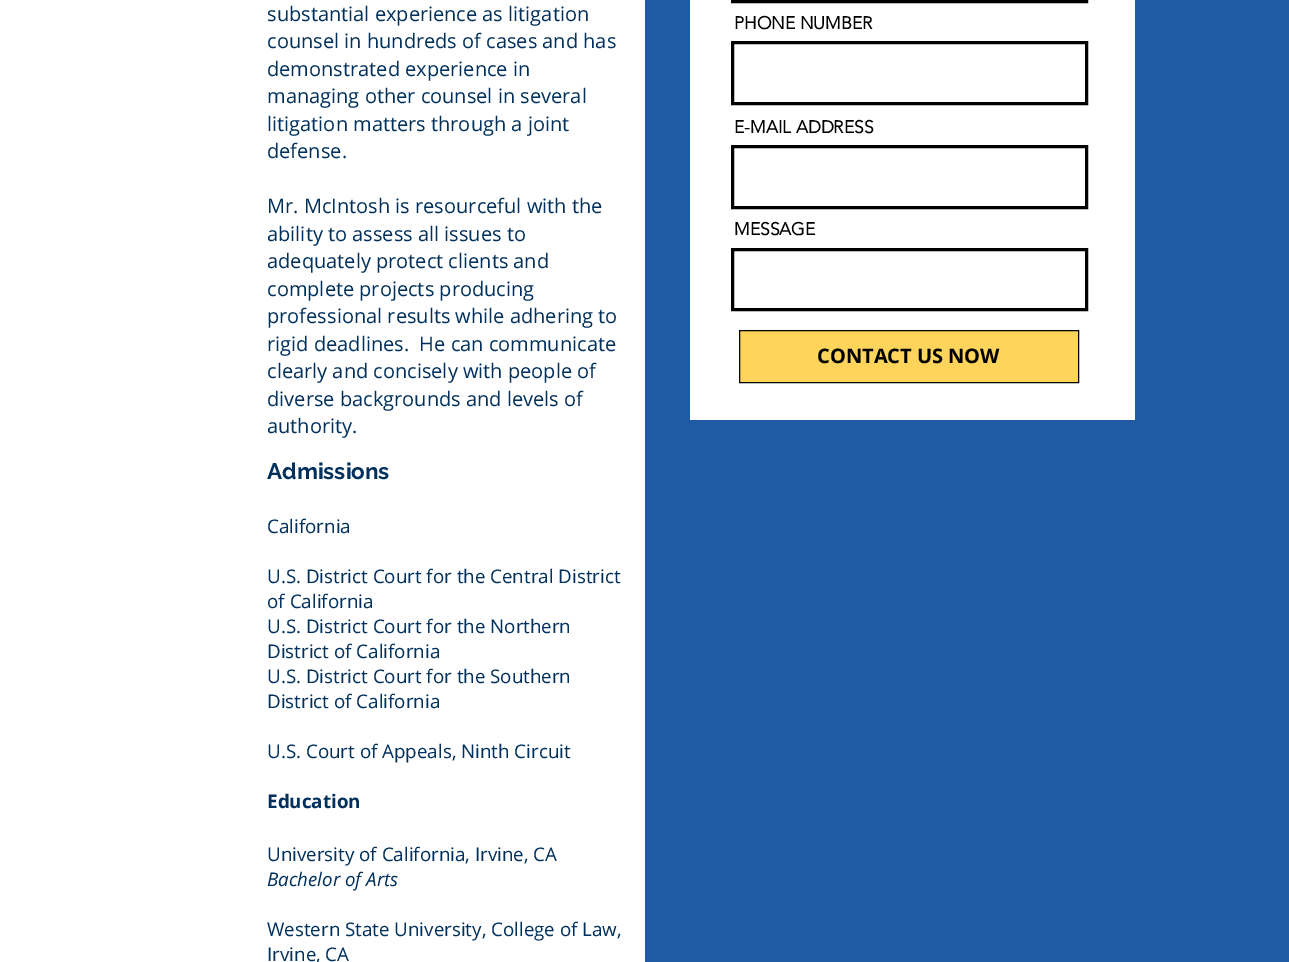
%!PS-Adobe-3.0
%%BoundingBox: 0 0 1289 962
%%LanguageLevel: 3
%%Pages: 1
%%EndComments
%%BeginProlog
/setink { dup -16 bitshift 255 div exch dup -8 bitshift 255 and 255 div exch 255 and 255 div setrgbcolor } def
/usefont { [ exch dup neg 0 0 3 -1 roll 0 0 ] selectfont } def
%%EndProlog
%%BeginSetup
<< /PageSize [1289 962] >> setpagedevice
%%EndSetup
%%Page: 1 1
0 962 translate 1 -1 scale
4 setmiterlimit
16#FFFFFF setink
0 0 1289 962 rectfill
/OpenSans-Regular 20 usefont
16#00305B setink
[
    [(substantial experience as litigation) 267 21]
    [(counsel in hundreds of cases and has) 267 48]
    [(demonstrated experience in) 267 76]
    [(managing other counsel in several) 267 103]
    [(litigation matters through a joint) 267 131]
    [(defense.) 267 158]
    [(Mr. McIntosh is resourceful with the) 267 213]
    [(ability to assess all issues to) 267 241]
    [(adequately protect clients and) 267 268]
    [(complete projects producing) 267 296]
    [(professional results while adhering to) 267 323]
    [(rigid deadlines.  He can communicate) 267 351]
    [(clearly and concisely with people of) 267 378]
    [(diverse backgrounds and levels of) 267 406]
    [(authority.) 267 433]
] { aload pop moveto show } forall
/Raleway-Bold 22.5 usefont
267 479 moveto (Admissions) show
/OpenSans-Regular 18.75 usefont
[
    [(California) 267 533]
    [(U.S. District Court for the Central District) 267 583]
    [(of California) 267 608]
    [(U.S. District Court for the Northern) 267 633]
    [(District of California) 267 658]
    [(U.S. District Court for the Southern) 267 683]
    [(District of California) 267 708]
    [(U.S. Court of Appeals, Ninth Circuit) 267 758]
] { aload pop moveto show } forall
/OpenSans-Bold 18.75 usefont
267 808 moveto (Education) show
/OpenSans-Regular 18.75 usefont
267 861 moveto (University of California, Irvine, CA) show
/OpenSans-Italic 18.75 usefont
267 886 moveto (Bachelor of Arts) show
/OpenSans-Regular 18.75 usefont
267 936 moveto (Western State University, College of Law,) show
267 961 moveto (Irvine, CA) show
16#1F5BA5 setink
645 0 644 962 rectfill
16#FFFFFF setink
690 0 445 420 rectfill
16#000000 setink
3 setlinewidth
732.5 -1.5 354 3 rectstroke
/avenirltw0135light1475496-Bold 17.5 usefont
734 29 moveto (PHONE NUMBER) show
732.5 42.5 354 61 rectstroke
734 133 moveto (E-MAIL ADDRESS) show
732.5 146.5 354 61 rectstroke
734 235 moveto (MESSAGE) show
732.5 249.5 354 60 rectstroke
16#FFD45A setink
739.5 330.5 moveto 1078.5 330.5 lineto 1078.5 382.5 lineto 739.5 382.5 lineto closepath gsave fill grestore
16#000000 setink
1 setlinewidth
stroke
/OpenSans-Bold 20 usefont
817 363 moveto (CONTACT US NOW) show
showpage
%%EOF
